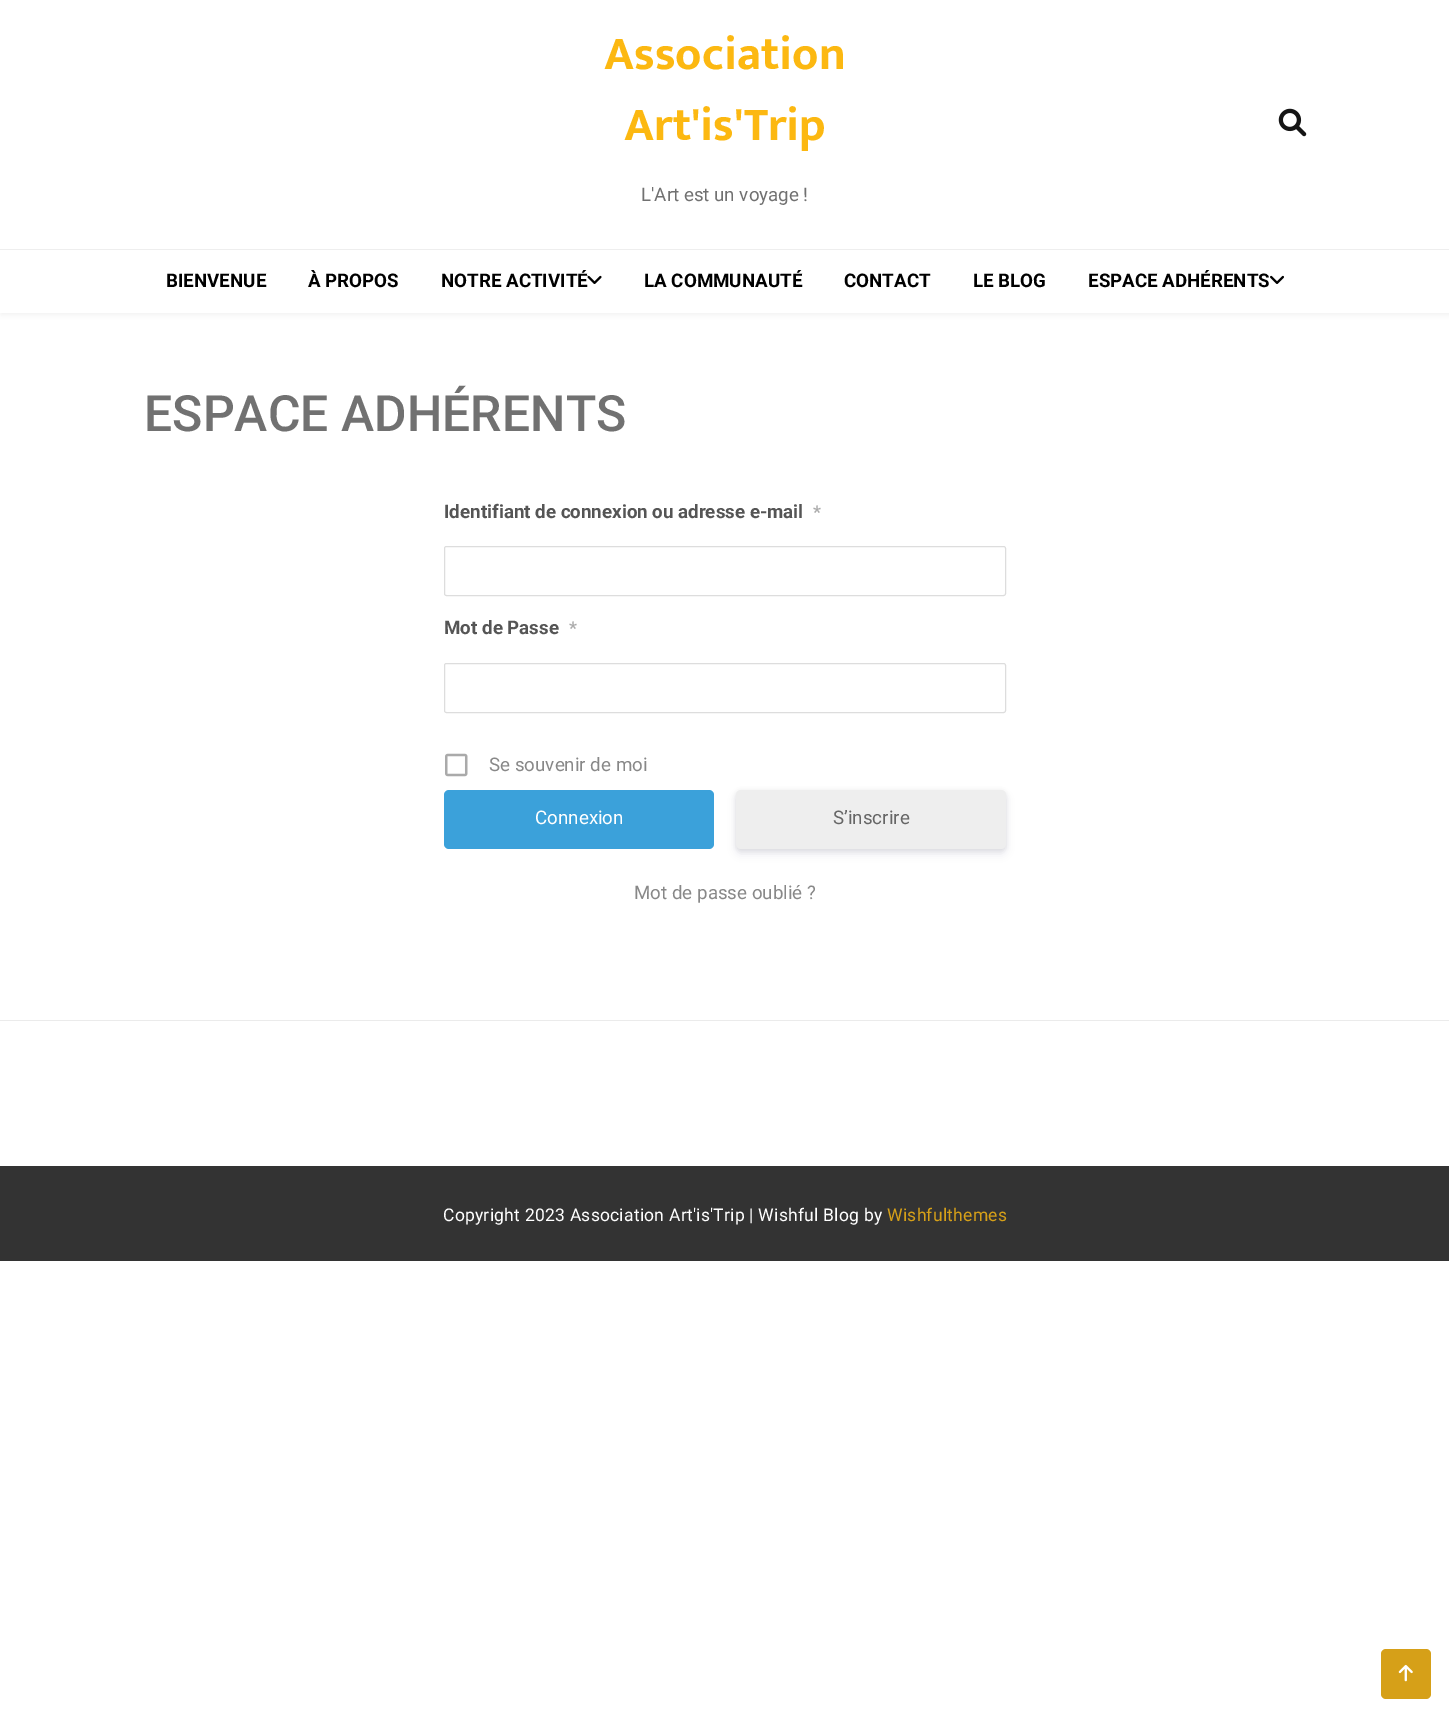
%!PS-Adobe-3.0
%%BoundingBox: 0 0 1449 1736
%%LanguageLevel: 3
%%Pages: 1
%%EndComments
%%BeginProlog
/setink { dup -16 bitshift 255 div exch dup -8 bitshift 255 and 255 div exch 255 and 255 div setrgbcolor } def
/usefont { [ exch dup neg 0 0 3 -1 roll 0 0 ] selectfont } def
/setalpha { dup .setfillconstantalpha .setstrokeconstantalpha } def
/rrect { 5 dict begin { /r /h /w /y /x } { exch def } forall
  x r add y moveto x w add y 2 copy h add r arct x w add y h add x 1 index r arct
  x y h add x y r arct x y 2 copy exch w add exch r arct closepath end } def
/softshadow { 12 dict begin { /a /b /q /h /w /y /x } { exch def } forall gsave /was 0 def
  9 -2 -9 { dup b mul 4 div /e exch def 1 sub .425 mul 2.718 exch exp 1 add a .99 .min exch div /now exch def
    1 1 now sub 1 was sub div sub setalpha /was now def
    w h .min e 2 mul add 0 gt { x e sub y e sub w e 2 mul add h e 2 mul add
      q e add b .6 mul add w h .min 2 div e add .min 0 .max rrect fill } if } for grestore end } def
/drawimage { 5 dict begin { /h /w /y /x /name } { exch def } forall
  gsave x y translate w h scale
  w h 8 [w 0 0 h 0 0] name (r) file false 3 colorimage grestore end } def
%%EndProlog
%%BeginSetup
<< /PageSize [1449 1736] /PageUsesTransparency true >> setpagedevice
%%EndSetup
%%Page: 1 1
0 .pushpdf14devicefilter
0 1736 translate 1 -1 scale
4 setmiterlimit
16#FFFFFF setink
0 0 1449 1736 rectfill
16#EBEBEB setink
1 3 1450 312 0 3 0.75 softshadow
16#FFFFFF setink
0 0 1449 313 rectfill
/Mukta-Bold 47.5 usefont
16#FCB811 setink
604 69 moveto (Association) show
624 140 moveto (Art'is'Trip) show
/Roboto-Regular 18.75 usefont
16#717171 setink
641 201 moveto (L'Art est un voyage !) show
(img1.raw) 1278 108 29 29 drawimage
16#EEEEEE setink
0 249 1449 1 rectfill
/Roboto-Bold 18.75 usefont
16#000000 setink
[
    [(BIENVENUE) 166 287]
    [(À PROPOS) 308 287]
    [(NOTRE ACTIVITÉ) 441 287]
] { aload pop moveto show } forall
(img2.raw) 587 275 15 9 drawimage
[
    [(LA COMMUNAUTÉ) 644 287]
    [(CONTACT) 844 287]
    [(LE BLOG) 973 287]
    [(ESPACE ADHÉRENTS) 1088 287]
] { aload pop moveto show } forall
(img3.raw) 1270 275 14 9 drawimage
/Roboto-Medium 50 usefont
16#717171 setink
144 431 moveto (ESPACE ADHÉRENTS) show
/Roboto-Bold 18.75 usefont
16#555555 setink
444 518 moveto (Identifiant de connexion ou adresse e-mail) show
/Roboto-Bold 17.5 usefont
16#AAAAAA setink
813 518 moveto (*) show
16#DDDDDD setink
444.5 546.5 561 49 2 rrect stroke
/Roboto-Bold 18.75 usefont
16#555555 setink
444 634 moveto (Mot de Passe) show
/Roboto-Bold 17.5 usefont
16#AAAAAA setink
569 634 moveto (*) show
16#DDDDDD setink
444.5 663.5 561 49 2 rrect stroke
(img4.raw) 445 753 23 24 drawimage
/Roboto-Regular 18.75 usefont
16#888888 setink
489 771 moveto (Se souvenir de moi) show
16#3BA1DA setink
444 790 270 59 5 rrect fill
16#FFFFFF setink
535 824 moveto (Connexion) show
16#000000 setink
736 791 270 59 5 2 0.08 softshadow
16#32325D setink
736 795 270 59 5 4 0.11 softshadow
16#EEEEEE setink
736 790 270 59 5 rrect fill
16#666666 setink
833 824 moveto (S’inscrire) show
16#888888 setink
634 899 moveto (Mot de passe oublié ?) show
16#EBEBEB setink
0 1020 1449 1 rectfill
16#333333 setink
0 1166 1449 95 rectfill
/Roboto-Regular 17.5 usefont
16#FFFFFF setink
443 1221 moveto 0.25 0 (Copyright 2023 Association Art'is'Trip | Wishful Blog by) ashow
16#D6A018 setink
887 1221 moveto 0.25 0 (Wishfulthemes) ashow
1381 1649 50 50 5 rrect fill
(img5.raw) 1398 1664 15 18 drawimage
.poppdf14devicefilter showpage
%%EOF
